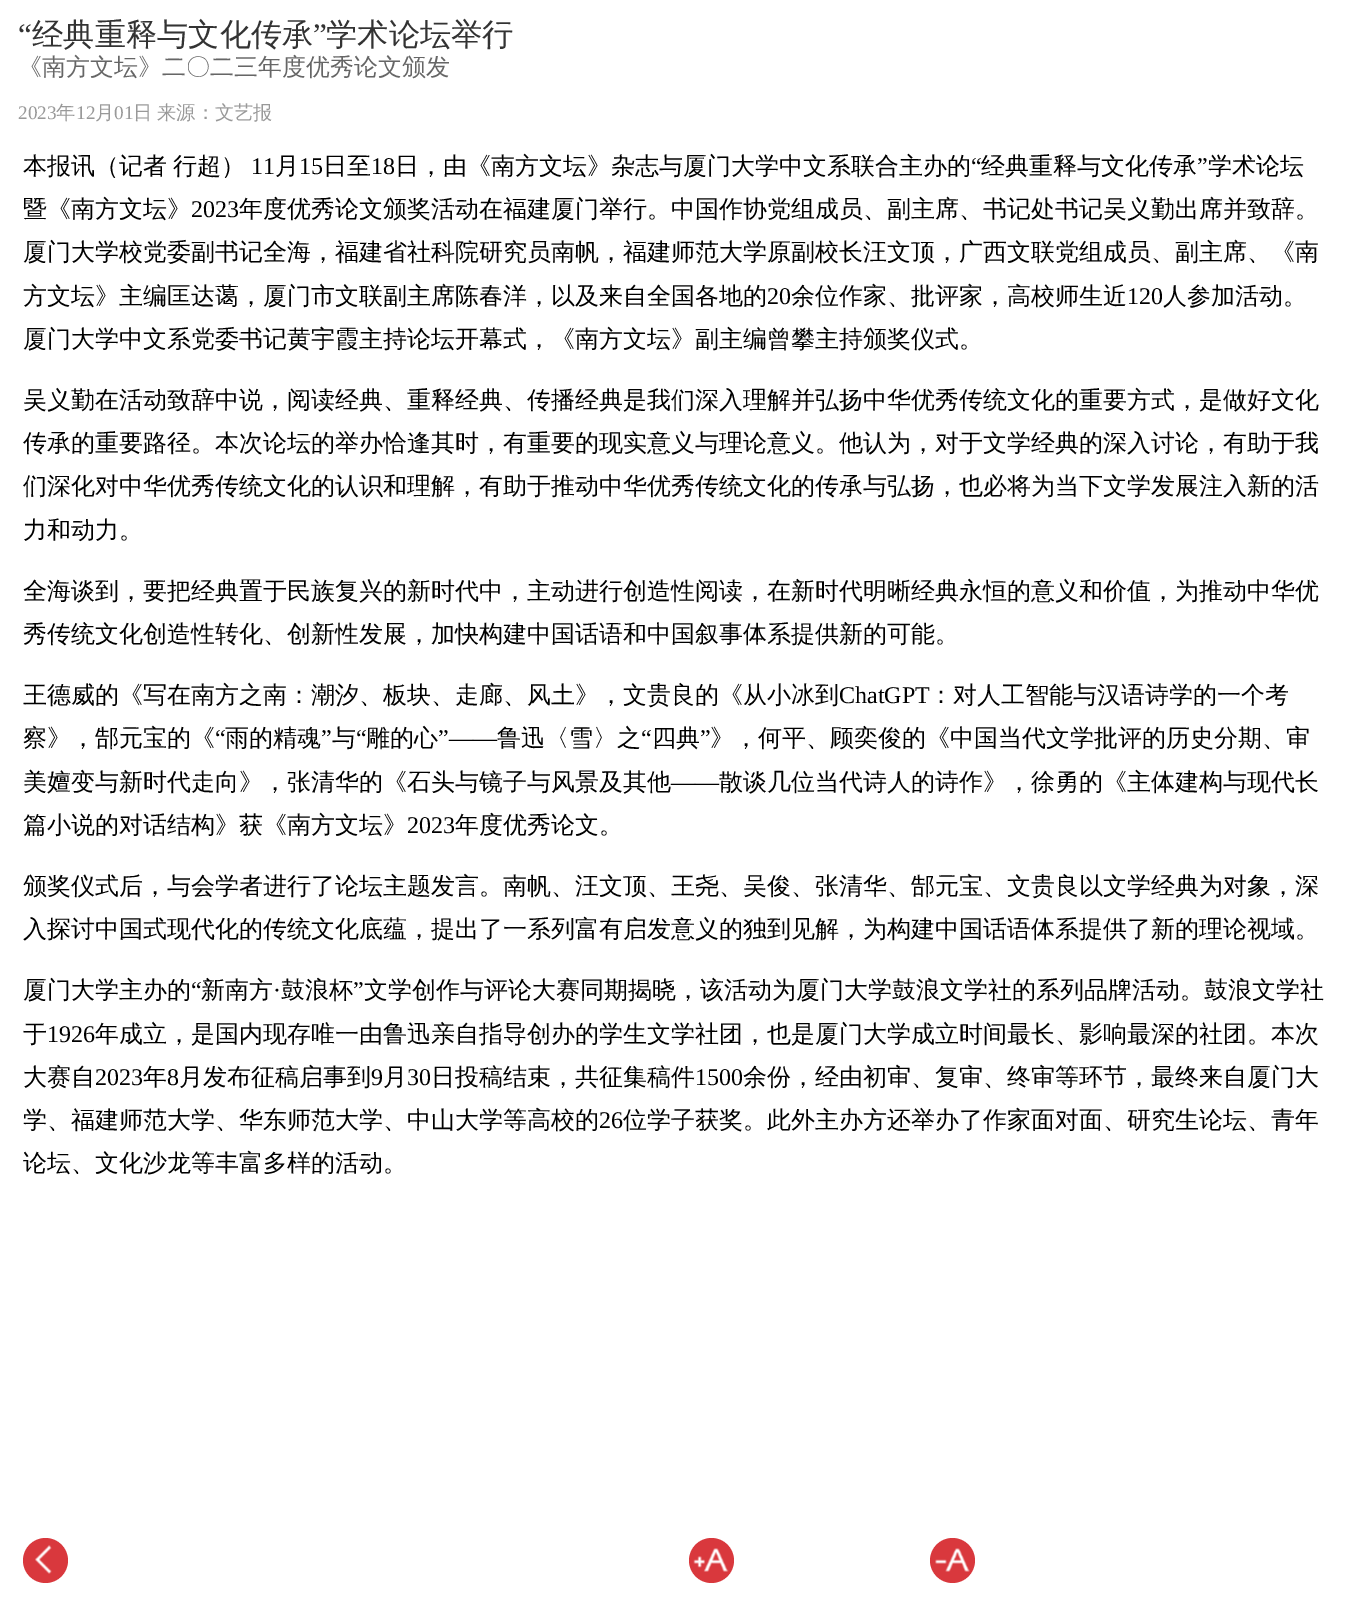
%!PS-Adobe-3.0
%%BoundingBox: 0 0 1349 1612
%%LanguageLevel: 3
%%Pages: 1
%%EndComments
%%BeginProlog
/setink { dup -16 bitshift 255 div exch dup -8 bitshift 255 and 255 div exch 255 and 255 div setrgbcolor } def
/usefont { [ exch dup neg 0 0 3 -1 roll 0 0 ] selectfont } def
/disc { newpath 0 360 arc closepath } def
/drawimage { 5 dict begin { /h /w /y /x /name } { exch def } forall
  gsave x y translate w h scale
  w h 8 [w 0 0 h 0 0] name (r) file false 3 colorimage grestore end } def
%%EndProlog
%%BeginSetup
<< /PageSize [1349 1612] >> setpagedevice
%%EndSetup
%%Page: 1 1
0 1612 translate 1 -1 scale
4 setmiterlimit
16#FFFFFF setink
0 0 1349 1612 rectfill
/LiberationSerif-Regular 31.25 usefont
16#333333 setink
18 45 moveto (“) show
/WenQuanYiZenHei-Medium 31.25 usefont
32 45 moveto (经典重释与文化传承) show
/LiberationSerif-Regular 31.25 usefont
313 45 moveto (”) show
/WenQuanYiZenHei-Medium 31.25 usefont
326 45 moveto (学术论坛举行) show
/WenQuanYiZenHei-Medium 24 usefont
16#666666 setink
18 75 moveto (《南方文坛》二〇二三年度优秀论文颁发) show
/LiberationSerif-Regular 19.25 usefont
16#999999 setink
18 119 moveto (2023) show
/WenQuanYiZenHei-Medium 19.25 usefont
56 119 moveto (年) show
/LiberationSerif-Regular 19.25 usefont
76 119 moveto (12) show
/WenQuanYiZenHei-Medium 19.25 usefont
95 119 moveto (月) show
/LiberationSerif-Regular 19.25 usefont
114 119 moveto (01) show
/WenQuanYiZenHei-Medium 19.25 usefont
133 119 moveto -1 0 32 (日 来源：文艺报) widthshow
/WenQuanYiZenHei-Medium 24 usefont
16#000000 setink
23 174 moveto -1 0 32 (本报讯（记者 行超）) widthshow
/LiberationSerif-Regular 24 usefont
251 174 moveto (11) show
/WenQuanYiZenHei-Medium 24 usefont
275 174 moveto (月) show
/LiberationSerif-Regular 24 usefont
299 174 moveto (15) show
/WenQuanYiZenHei-Medium 24 usefont
323 174 moveto (日至) show
/LiberationSerif-Regular 24 usefont
371 174 moveto (18) show
/WenQuanYiZenHei-Medium 24 usefont
395 174 moveto (日，由《南方文坛》杂志与厦门大学中文系联合主办的) show
/LiberationSerif-Regular 24 usefont
971 174 moveto (“) show
/WenQuanYiZenHei-Medium 24 usefont
981 174 moveto (经典重释与文化传承) show
/LiberationSerif-Regular 24 usefont
1197 174 moveto (”) show
/WenQuanYiZenHei-Medium 24 usefont
1208 174 moveto (学术论坛) show
23 217 moveto (暨《南方文坛》) show
/LiberationSerif-Regular 24 usefont
191 217 moveto (2023) show
/WenQuanYiZenHei-Medium 24 usefont
[
    [(年度优秀论文颁奖活动在福建厦门举行。中国作协党组成员、副主席、书记处书记吴义勤出席并致辞。) 239 217]
    [(厦门大学校党委副书记全海，福建省社科院研究员南帆，福建师范大学原副校长汪文顶，广西文联党组成员、副主席、《南) 23 260]
    [(方文坛》主编匡达蔼，厦门市文联副主席陈春洋，以及来自全国各地的) 23 304]
] { aload pop moveto show } forall
/LiberationSerif-Regular 24 usefont
767 304 moveto (20) show
/WenQuanYiZenHei-Medium 24 usefont
791 304 moveto (余位作家、批评家，高校师生近) show
/LiberationSerif-Regular 24 usefont
1127 304 moveto (120) show
/WenQuanYiZenHei-Medium 24 usefont
[
    [(人参加活动。) 1163 304]
    [(厦门大学中文系党委书记黄宇霞主持论坛开幕式，《南方文坛》副主编曾攀主持颁奖仪式。) 23 347]
    [(吴义勤在活动致辞中说，阅读经典、重释经典、传播经典是我们深入理解并弘扬中华优秀传统文化的重要方式，是做好文化) 23 408]
    [(传承的重要路径。本次论坛的举办恰逢其时，有重要的现实意义与理论意义。他认为，对于文学经典的深入讨论，有助于我) 23 451]
    [(们深化对中华优秀传统文化的认识和理解，有助于推动中华优秀传统文化的传承与弘扬，也必将为当下文学发展注入新的活) 23 494]
    [(力和动力。) 23 538]
    [(全海谈到，要把经典置于民族复兴的新时代中，主动进行创造性阅读，在新时代明晰经典永恒的意义和价值，为推动中华优) 23 599]
    [(秀传统文化创造性转化、创新性发展，加快构建中国话语和中国叙事体系提供新的可能。) 23 642]
    [(王德威的《写在南方之南：潮汐、板块、走廊、风土》，文贵良的《从小冰到) 23 703]
] { aload pop moveto show } forall
/LiberationSerif-Regular 24 usefont
839 703 moveto (ChatGPT) show
/WenQuanYiZenHei-Medium 24 usefont
929 703 moveto (：对人工智能与汉语诗学的一个考) show
23 746 moveto (察》，郜元宝的《) show
/LiberationSerif-Regular 24 usefont
215 746 moveto (“) show
/WenQuanYiZenHei-Medium 24 usefont
225 746 moveto (雨的精魂) show
/LiberationSerif-Regular 24 usefont
321 746 moveto (”) show
/WenQuanYiZenHei-Medium 24 usefont
332 746 moveto (与) show
/LiberationSerif-Regular 24 usefont
356 746 moveto (“) show
/WenQuanYiZenHei-Medium 24 usefont
366 746 moveto (雕的心) show
/LiberationSerif-Regular 24 usefont
438 746 moveto (”——) show
/WenQuanYiZenHei-Medium 24 usefont
497 746 moveto (鲁迅〈雪〉之) show
/LiberationSerif-Regular 24 usefont
641 746 moveto (“) show
/WenQuanYiZenHei-Medium 24 usefont
652 746 moveto (四典) show
/LiberationSerif-Regular 24 usefont
700 746 moveto (”) show
/WenQuanYiZenHei-Medium 24 usefont
710 746 moveto (》，何平、顾奕俊的《中国当代文学批评的历史分期、审) show
23 790 moveto (美嬗变与新时代走向》，张清华的《石头与镜子与风景及其他) show
/LiberationSerif-Regular 24 usefont
671 790 moveto (——) show
/WenQuanYiZenHei-Medium 24 usefont
719 790 moveto (散谈几位当代诗人的诗作》，徐勇的《主体建构与现代长) show
23 833 moveto (篇小说的对话结构》获《南方文坛》) show
/LiberationSerif-Regular 24 usefont
407 833 moveto (2023) show
/WenQuanYiZenHei-Medium 24 usefont
[
    [(年度优秀论文。) 455 833]
    [(颁奖仪式后，与会学者进行了论坛主题发言。南帆、汪文顶、王尧、吴俊、张清华、郜元宝、文贵良以文学经典为对象，深) 23 894]
    [(入探讨中国式现代化的传统文化底蕴，提出了一系列富有启发意义的独到见解，为构建中国话语体系提供了新的理论视域。) 23 937]
    [(厦门大学主办的) 23 998]
] { aload pop moveto show } forall
/LiberationSerif-Regular 24 usefont
191 998 moveto (“) show
/WenQuanYiZenHei-Medium 24 usefont
201 998 moveto (新南方) show
281 998 moveto (鼓浪杯) show
/LiberationSerif-Regular 24 usefont
353 998 moveto (”) show
/WenQuanYiZenHei-Medium 24 usefont
364 998 moveto (文学创作与评论大赛同期揭晓，该活动为厦门大学鼓浪文学社的系列品牌活动。鼓浪文学社) show
/LiberationSerif-Regular 24 usefont
273 998 moveto (·) show
/WenQuanYiZenHei-Medium 24 usefont
23 1042 moveto (于) show
/LiberationSerif-Regular 24 usefont
47 1042 moveto (1926) show
/WenQuanYiZenHei-Medium 24 usefont
95 1042 moveto (年成立，是国内现存唯一由鲁迅亲自指导创办的学生文学社团，也是厦门大学成立时间最长、影响最深的社团。本次) show
23 1085 moveto (大赛自) show
/LiberationSerif-Regular 24 usefont
95 1085 moveto (2023) show
/WenQuanYiZenHei-Medium 24 usefont
143 1085 moveto (年) show
/LiberationSerif-Regular 24 usefont
167 1085 moveto (8) show
/WenQuanYiZenHei-Medium 24 usefont
179 1085 moveto (月发布征稿启事到) show
/LiberationSerif-Regular 24 usefont
371 1085 moveto (9) show
/WenQuanYiZenHei-Medium 24 usefont
383 1085 moveto (月) show
/LiberationSerif-Regular 24 usefont
407 1085 moveto (30) show
/WenQuanYiZenHei-Medium 24 usefont
431 1085 moveto (日投稿结束，共征集稿件) show
/LiberationSerif-Regular 24 usefont
695 1085 moveto (1500) show
/WenQuanYiZenHei-Medium 24 usefont
743 1085 moveto (余份，经由初审、复审、终审等环节，最终来自厦门大) show
23 1128 moveto (学、福建师范大学、华东师范大学、中山大学等高校的) show
/LiberationSerif-Regular 24 usefont
599 1128 moveto (26) show
/WenQuanYiZenHei-Medium 24 usefont
623 1128 moveto (位学子获奖。此外主办方还举办了作家面对面、研究生论坛、青年) show
23 1171 moveto (论坛、文化沙龙等丰富多样的活动。) show
16#D9383D setink
45.5 1560.5 22.5 disc fill
(img1.raw) 35 1545 17 29 drawimage
711.5 1560.5 22.5 disc fill
(img2.raw) 693 1548 36 24 drawimage
952.5 1560.5 22.5 disc fill
(img3.raw) 935 1548 35 24 drawimage
showpage
%%EOF
